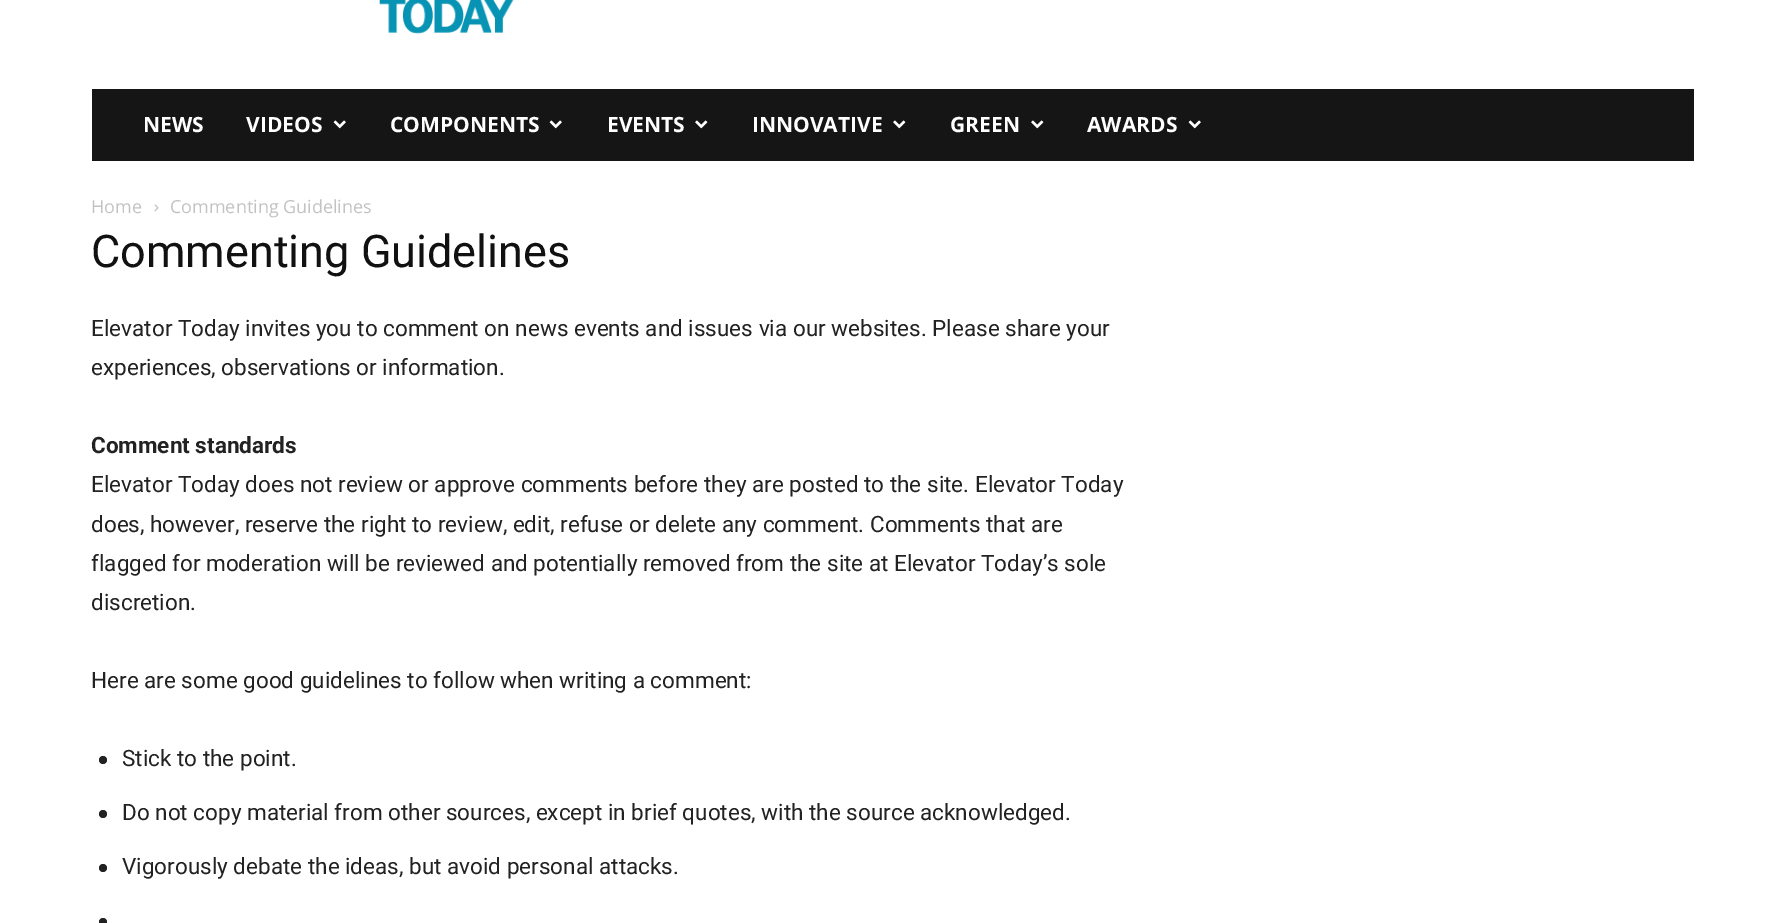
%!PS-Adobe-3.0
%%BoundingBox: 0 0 1783 923
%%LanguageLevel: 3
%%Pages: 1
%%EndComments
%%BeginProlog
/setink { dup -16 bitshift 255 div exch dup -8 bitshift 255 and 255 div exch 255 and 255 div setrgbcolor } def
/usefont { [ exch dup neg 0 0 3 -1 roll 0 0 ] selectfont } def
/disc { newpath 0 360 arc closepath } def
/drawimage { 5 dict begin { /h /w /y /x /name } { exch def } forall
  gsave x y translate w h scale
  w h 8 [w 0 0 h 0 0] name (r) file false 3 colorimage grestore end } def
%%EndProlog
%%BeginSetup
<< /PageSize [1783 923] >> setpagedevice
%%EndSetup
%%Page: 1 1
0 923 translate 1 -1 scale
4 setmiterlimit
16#FFFFFF setink
0 0 1783 923 rectfill
(img1.raw) 379 0 135 34 drawimage
16#151515 setink
92 89 1602 72 rectfill
/OpenSans-Bold 21 usefont
16#FFFFFF setink
143 132 moveto (NEWS) show
246 132 moveto (VIDEOS) show
(img2.raw) 333 120 13 9 drawimage
390 132 moveto (COMPONENTS) show
(img2.raw) 549 120 13 9 drawimage
607 132 moveto (EVENTS) show
(img3.raw) 695 120 13 9 drawimage
752 132 moveto (INNOVATIVE) show
(img3.raw) 893 120 13 9 drawimage
950 132 moveto (GREEN) show
(img3.raw) 1031 120 13 9 drawimage
1087 132 moveto (AWARDS) show
(img2.raw) 1188 120 13 9 drawimage
/OpenSans-Regular 18 usefont
16#C3C3C3 setink
91 213 moveto (Home) show
(img4.raw) 154 204 5 8 drawimage
170 213 moveto (Commenting Guidelines) show
/Roboto-Regular 45 usefont
16#111111 setink
91 267 moveto (Commenting Guidelines) show
/Roboto-Regular 22.5 usefont
16#222222 setink
91 336 moveto (Elevator Today invites you to comment on news events and issues via our websites. Please share your) show
91 375 moveto (experiences, observations or information.) show
/Roboto-Bold 22.5 usefont
91 453 moveto (Comment standards) show
/Roboto-Regular 22.5 usefont
[
    [(Elevator Today does not review or approve comments before they are posted to the site. Elevator Today) 91 492]
    [(does, however, reserve the right to review, edit, refuse or delete any comment. Comments that are) 91 532]
    [(flagged for moderation will be reviewed and potentially removed from the site at Elevator Today’s sole) 91 571]
    [(discretion.) 91 610]
    [(Here are some good guidelines to follow when writing a comment:) 91 688]
] { aload pop moveto show } forall
103 760 4 disc fill
122 766 moveto (Stick to the point.) show
103 814 4 disc fill
122 820 moveto (Do not copy material from other sources, except in brief quotes, with the source acknowledged.) show
103 868 4 disc fill
122 874 moveto (Vigorously debate the ideas, but avoid personal attacks.) show
103 922 4 disc fill
showpage
%%EOF
